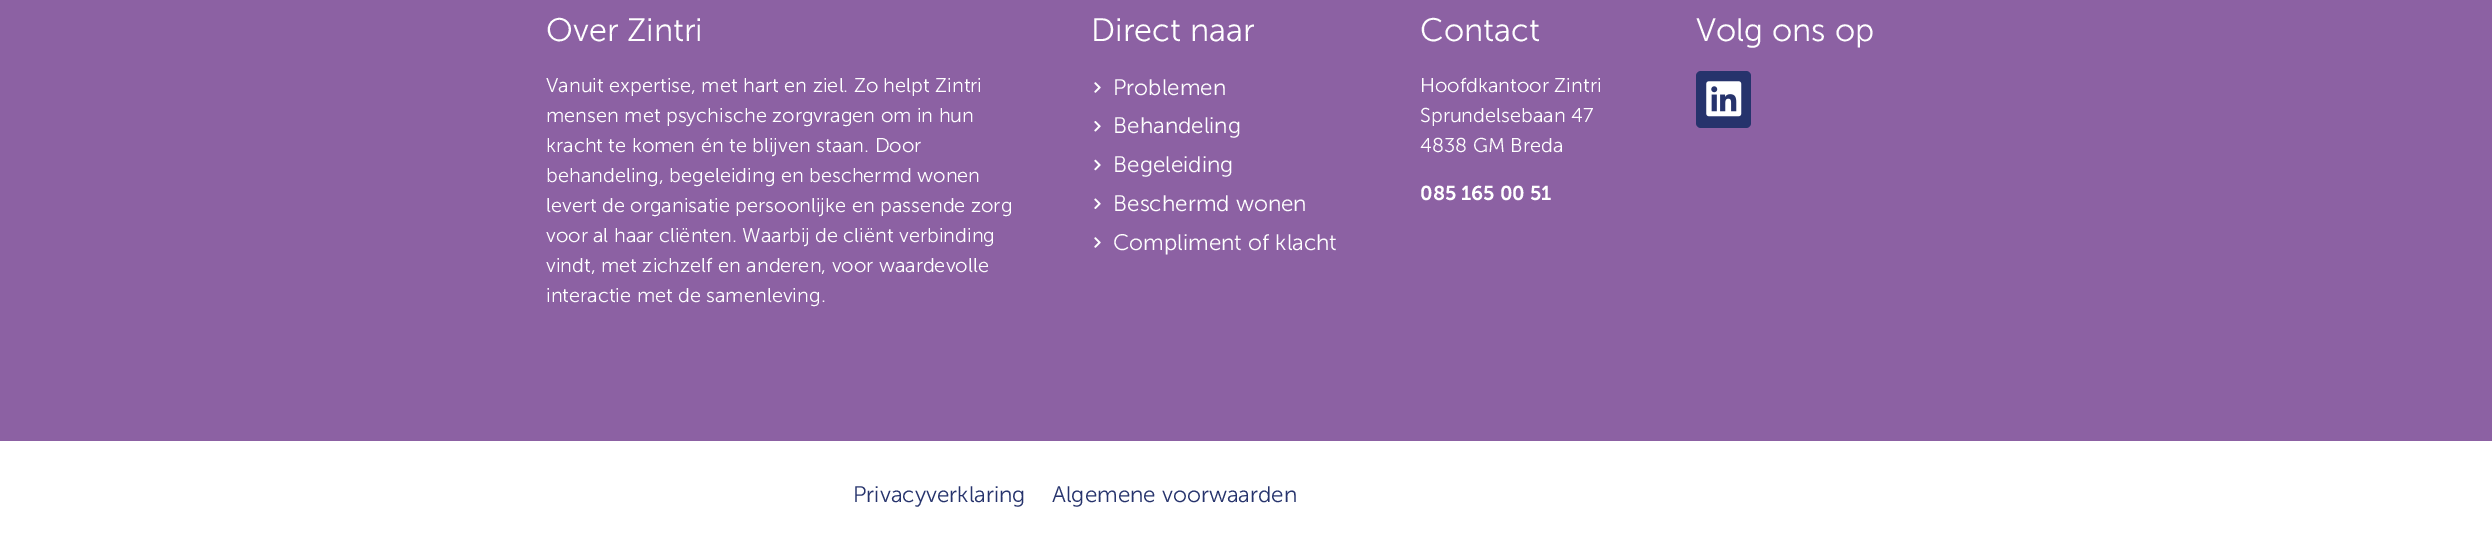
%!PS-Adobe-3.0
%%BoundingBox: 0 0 2492 550
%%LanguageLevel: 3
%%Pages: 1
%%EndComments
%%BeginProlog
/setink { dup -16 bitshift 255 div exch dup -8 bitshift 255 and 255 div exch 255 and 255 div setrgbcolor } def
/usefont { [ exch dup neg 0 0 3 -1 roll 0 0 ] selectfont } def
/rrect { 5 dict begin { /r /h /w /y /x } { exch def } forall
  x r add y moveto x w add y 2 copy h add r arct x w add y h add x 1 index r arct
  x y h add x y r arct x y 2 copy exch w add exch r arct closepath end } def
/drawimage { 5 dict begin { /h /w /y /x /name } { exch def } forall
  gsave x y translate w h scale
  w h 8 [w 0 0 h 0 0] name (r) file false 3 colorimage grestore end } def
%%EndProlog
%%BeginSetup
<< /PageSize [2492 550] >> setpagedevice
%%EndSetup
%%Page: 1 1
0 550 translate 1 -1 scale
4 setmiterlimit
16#8C61A3 setink
0 0 2492 550 rectfill
/MuseoSans-Light 32.5 usefont
16#FFFFFF setink
546 41 moveto (Over Zintri) show
/MuseoSans-Light 20 usefont
[
    [(Vanuit expertise, met hart en ziel. Zo helpt Zintri) 546 92]
    [(mensen met psychische zorgvragen om in hun) 546 122]
    [(kracht te komen én te blijven staan. Door) 546 152]
    [(behandeling, begeleiding en beschermd wonen) 546 182]
    [(levert de organisatie persoonlijke en passende zorg) 546 212]
    [(voor al haar cliënten. Waarbij de cliënt verbinding) 546 242]
    [(vindt, met zichzelf en anderen, voor waardevolle) 546 272]
    [(interactie met de samenleving.) 546 302]
] { aload pop moveto show } forall
/MuseoSans-Light 32.5 usefont
1091 41 moveto (Direct naar) show
(img1.raw) 1094 82 7 11 drawimage
/MuseoSans-Light 22.5 usefont
1113 95 moveto (Problemen) show
(img2.raw) 1094 121 7 11 drawimage
1113 133 moveto (Behandeling) show
(img3.raw) 1094 159 7 12 drawimage
1113 172 moveto (Begeleiding) show
(img4.raw) 1094 198 7 11 drawimage
1113 211 moveto (Beschermd wonen) show
(img1.raw) 1094 237 7 11 drawimage
1113 250 moveto (Compliment of klacht) show
/MuseoSans-Light 32.5 usefont
1420 41 moveto (Contact) show
/MuseoSans-Light 20 usefont
[
    [(Hoofdkantoor Zintri) 1420 92]
    [(Sprundelsebaan 47) 1420 122]
    [(4838 GM Breda) 1420 152]
] { aload pop moveto show } forall
/MuseoSans-SemiBold 20 usefont
1420 200 moveto (085 165 00 51) show
/MuseoSans-Light 32.5 usefont
1696 41 moveto (Volg ons op) show
16#26336C setink
1696 71 55 57 5 rrect fill
(img5.raw) 1706 81 36 36 drawimage
16#FFFFFF setink
0 441 2492 109 rectfill
/MuseoSans-Light 22.5 usefont
16#26336C setink
853 502 moveto (Privacyverklaring) show
1052 502 moveto (Algemene voorwaarden) show
showpage
%%EOF
